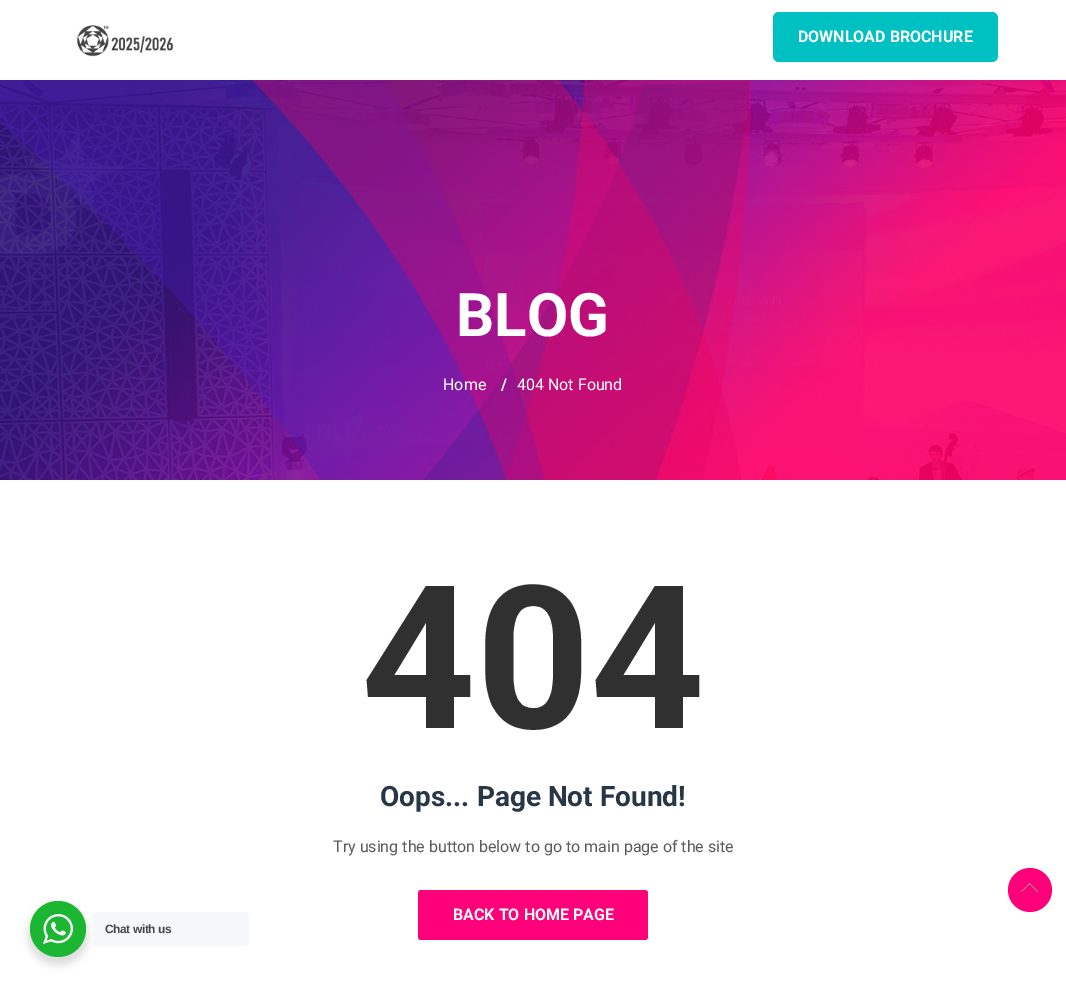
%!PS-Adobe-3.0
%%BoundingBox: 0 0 1066 987
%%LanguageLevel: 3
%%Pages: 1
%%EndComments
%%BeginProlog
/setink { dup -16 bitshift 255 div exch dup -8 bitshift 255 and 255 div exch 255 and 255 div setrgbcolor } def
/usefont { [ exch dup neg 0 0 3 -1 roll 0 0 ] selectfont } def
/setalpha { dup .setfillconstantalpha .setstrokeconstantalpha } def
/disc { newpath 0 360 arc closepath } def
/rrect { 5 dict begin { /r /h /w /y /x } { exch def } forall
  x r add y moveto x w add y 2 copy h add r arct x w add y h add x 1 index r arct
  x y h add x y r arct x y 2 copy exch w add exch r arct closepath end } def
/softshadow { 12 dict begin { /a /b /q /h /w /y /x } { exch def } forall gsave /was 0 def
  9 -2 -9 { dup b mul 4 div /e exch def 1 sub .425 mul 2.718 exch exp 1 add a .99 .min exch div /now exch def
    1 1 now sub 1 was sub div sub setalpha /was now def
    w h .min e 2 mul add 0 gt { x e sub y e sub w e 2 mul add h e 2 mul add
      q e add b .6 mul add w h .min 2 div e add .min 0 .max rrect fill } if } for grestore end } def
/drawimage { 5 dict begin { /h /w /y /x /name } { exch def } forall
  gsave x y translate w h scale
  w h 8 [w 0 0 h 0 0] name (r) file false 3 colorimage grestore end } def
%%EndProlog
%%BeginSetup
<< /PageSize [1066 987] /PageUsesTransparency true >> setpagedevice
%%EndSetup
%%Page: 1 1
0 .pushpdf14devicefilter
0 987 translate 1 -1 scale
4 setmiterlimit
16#FFFFFF setink
0 0 1066 987 rectfill
(img1.raw) 76 25 98 32 drawimage
16#00C1C1 setink
773 12 225 50 6 rrect fill
/Roboto-Bold 16 usefont
16#FFFFFF setink
798 42 moveto (DOWNLOAD BROCHURE) show
(img2.raw) 0 80 1066 400 drawimage
/Roboto-Bold 60 usefont
456 336 moveto (BLOG) show
/Roboto-Regular 16 usefont
443 390 moveto (Home) show
/Roboto-Bold 16 usefont
501 390 moveto (/) show
/Roboto-Regular 16 usefont
517 390 moveto (404 Not Found) show
/Roboto-Bold 200 usefont
16#303030 setink
361 728 moveto (404) show
/Roboto-Bold 28 usefont
16#283747 setink
380 806 moveto (Oops... Page Not Found!) show
/Roboto-Regular 16 usefont
16#5A5A5A setink
333 852 moveto (Try using the button below to go to main page of the site) show
16#FF007A setink
418 890 230 50 3 rrect fill
/Roboto-Bold 16 usefont
16#FFFFFF setink
453 920 moveto (BACK TO HOME PAGE) show
16#FF007A setink
1030 890 22 disc fill
(img3.raw) 1021 883 17 9 drawimage
16#000000 setink
28 905 60 60 30 4 0.14 softshadow
16#1BB732 setink
58 929 28 disc fill
(img4.raw) 43 914 30 30 drawimage
16#F5F7F9 setink
93 912 156 34 4 rrect fill
/LiberationSans-Bold 12 usefont
16#43474E setink
105 933 moveto -0.4 0 (Chat with us) ashow
.poppdf14devicefilter showpage
%%EOF
